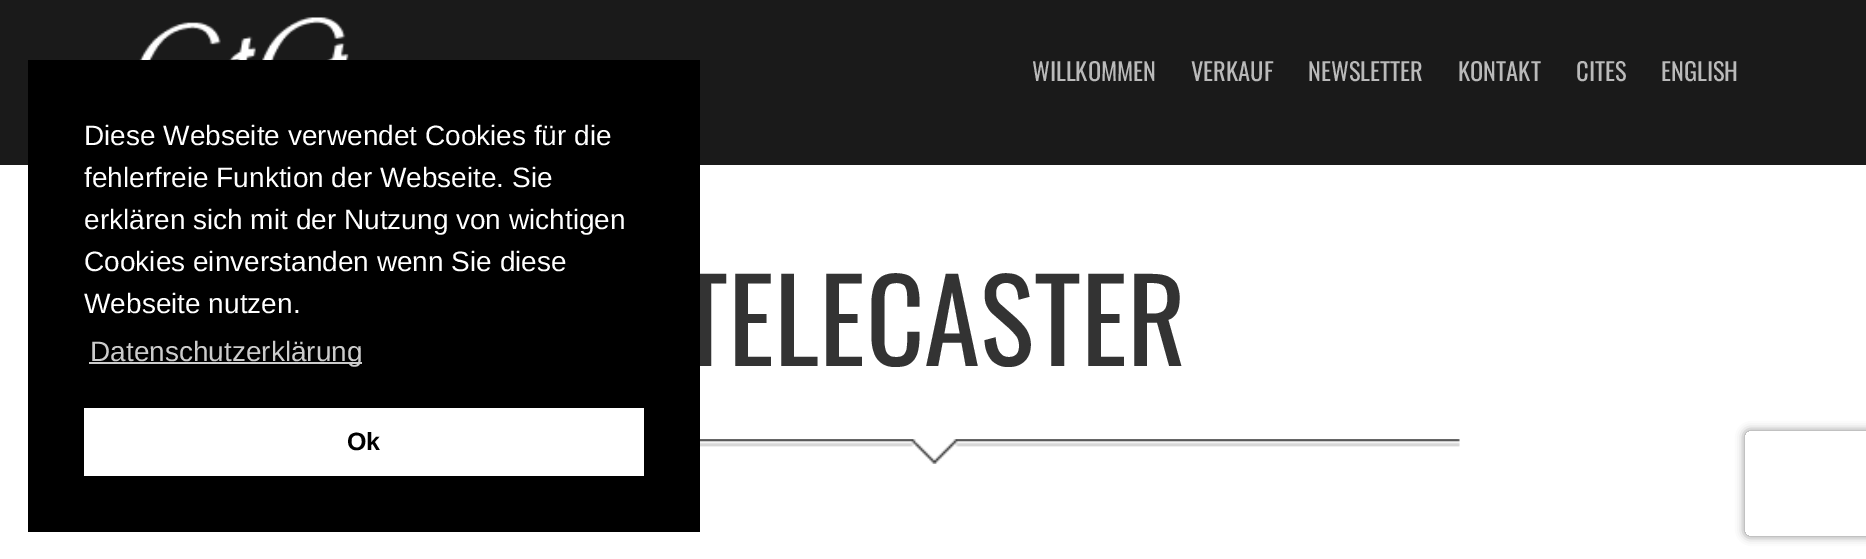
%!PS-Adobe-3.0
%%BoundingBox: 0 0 1866 559
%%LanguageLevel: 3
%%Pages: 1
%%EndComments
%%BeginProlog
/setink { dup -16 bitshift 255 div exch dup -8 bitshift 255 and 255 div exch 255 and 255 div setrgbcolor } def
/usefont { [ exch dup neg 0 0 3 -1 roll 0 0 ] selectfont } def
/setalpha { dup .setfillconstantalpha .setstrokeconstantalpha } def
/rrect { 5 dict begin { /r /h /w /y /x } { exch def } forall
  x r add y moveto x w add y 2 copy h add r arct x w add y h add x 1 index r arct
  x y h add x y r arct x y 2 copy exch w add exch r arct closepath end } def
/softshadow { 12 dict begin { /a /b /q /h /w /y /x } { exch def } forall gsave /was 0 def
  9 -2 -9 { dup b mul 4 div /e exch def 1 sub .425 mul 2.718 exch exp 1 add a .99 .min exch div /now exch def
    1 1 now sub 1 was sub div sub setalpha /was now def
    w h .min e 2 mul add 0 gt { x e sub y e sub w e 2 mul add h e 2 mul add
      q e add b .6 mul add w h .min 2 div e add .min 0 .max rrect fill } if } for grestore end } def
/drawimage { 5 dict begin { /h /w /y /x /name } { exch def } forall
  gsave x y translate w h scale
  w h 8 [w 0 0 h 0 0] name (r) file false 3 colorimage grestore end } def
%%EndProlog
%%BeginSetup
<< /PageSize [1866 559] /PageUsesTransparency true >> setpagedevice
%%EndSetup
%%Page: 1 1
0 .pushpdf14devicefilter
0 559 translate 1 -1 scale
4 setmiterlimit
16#FFFFFF setink
0 0 1866 559 rectfill
16#1A1A1A setink
0 0 1866 165 rectfill
(img1.raw) 139 17 210 43 drawimage
/Oswald-Regular 24.5 usefont
16#BABABA setink
[
    [(WILLKOMMEN) 1032 81]
    [(VERKAUF) 1191 81]
    [(NEWSLETTER) 1308 81]
    [(KONTAKT) 1458 81]
    [(CITES) 1576 81]
    [(ENGLISH) 1661 81]
] { aload pop moveto show } forall
/Oswald-Regular 113.75 usefont
16#333333 setink
681 366 moveto (TELECASTER) show
16#000000 setink
28 60 672 472 rectfill
/LiberationSans-Regular 28 usefont
16#FFFFFF setink
[
    [(Diese Webseite verwendet Cookies für die) 84 145]
    [(fehlerfreie Funktion der Webseite. Sie) 84 187]
    [(erklären sich mit der Nutzung von wichtigen) 84 229]
    [(Cookies einverstanden wenn Sie diese) 84 271]
    [(Webseite nutzen.) 84 313]
] { aload pop moveto show } forall
16#CCCCCC setink
89 362 273 2 rectfill
90 361 moveto (Datenschutzerklärung) show
16#FFFFFF setink
84 408 560 68 rectfill
/LiberationSans-Bold 25 usefont
16#000000 setink
347 450 moveto (Ok) show
(img2.raw) 700 439 760 25 drawimage
gsave
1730 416 moveto 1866 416 lineto 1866 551 lineto 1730 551 lineto closepath 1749 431 moveto 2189 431 lineto 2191 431 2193 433 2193 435 curveto 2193 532 lineto 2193 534 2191 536 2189 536 curveto 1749 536 lineto 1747 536 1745 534 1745 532 curveto 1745 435 lineto 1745 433 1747 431 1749 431 curveto closepath eoclip newpath
16#808080 setink
1745 431 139 105 4 4.5 1 softshadow
grestore
.poppdf14devicefilter showpage
%%EOF
